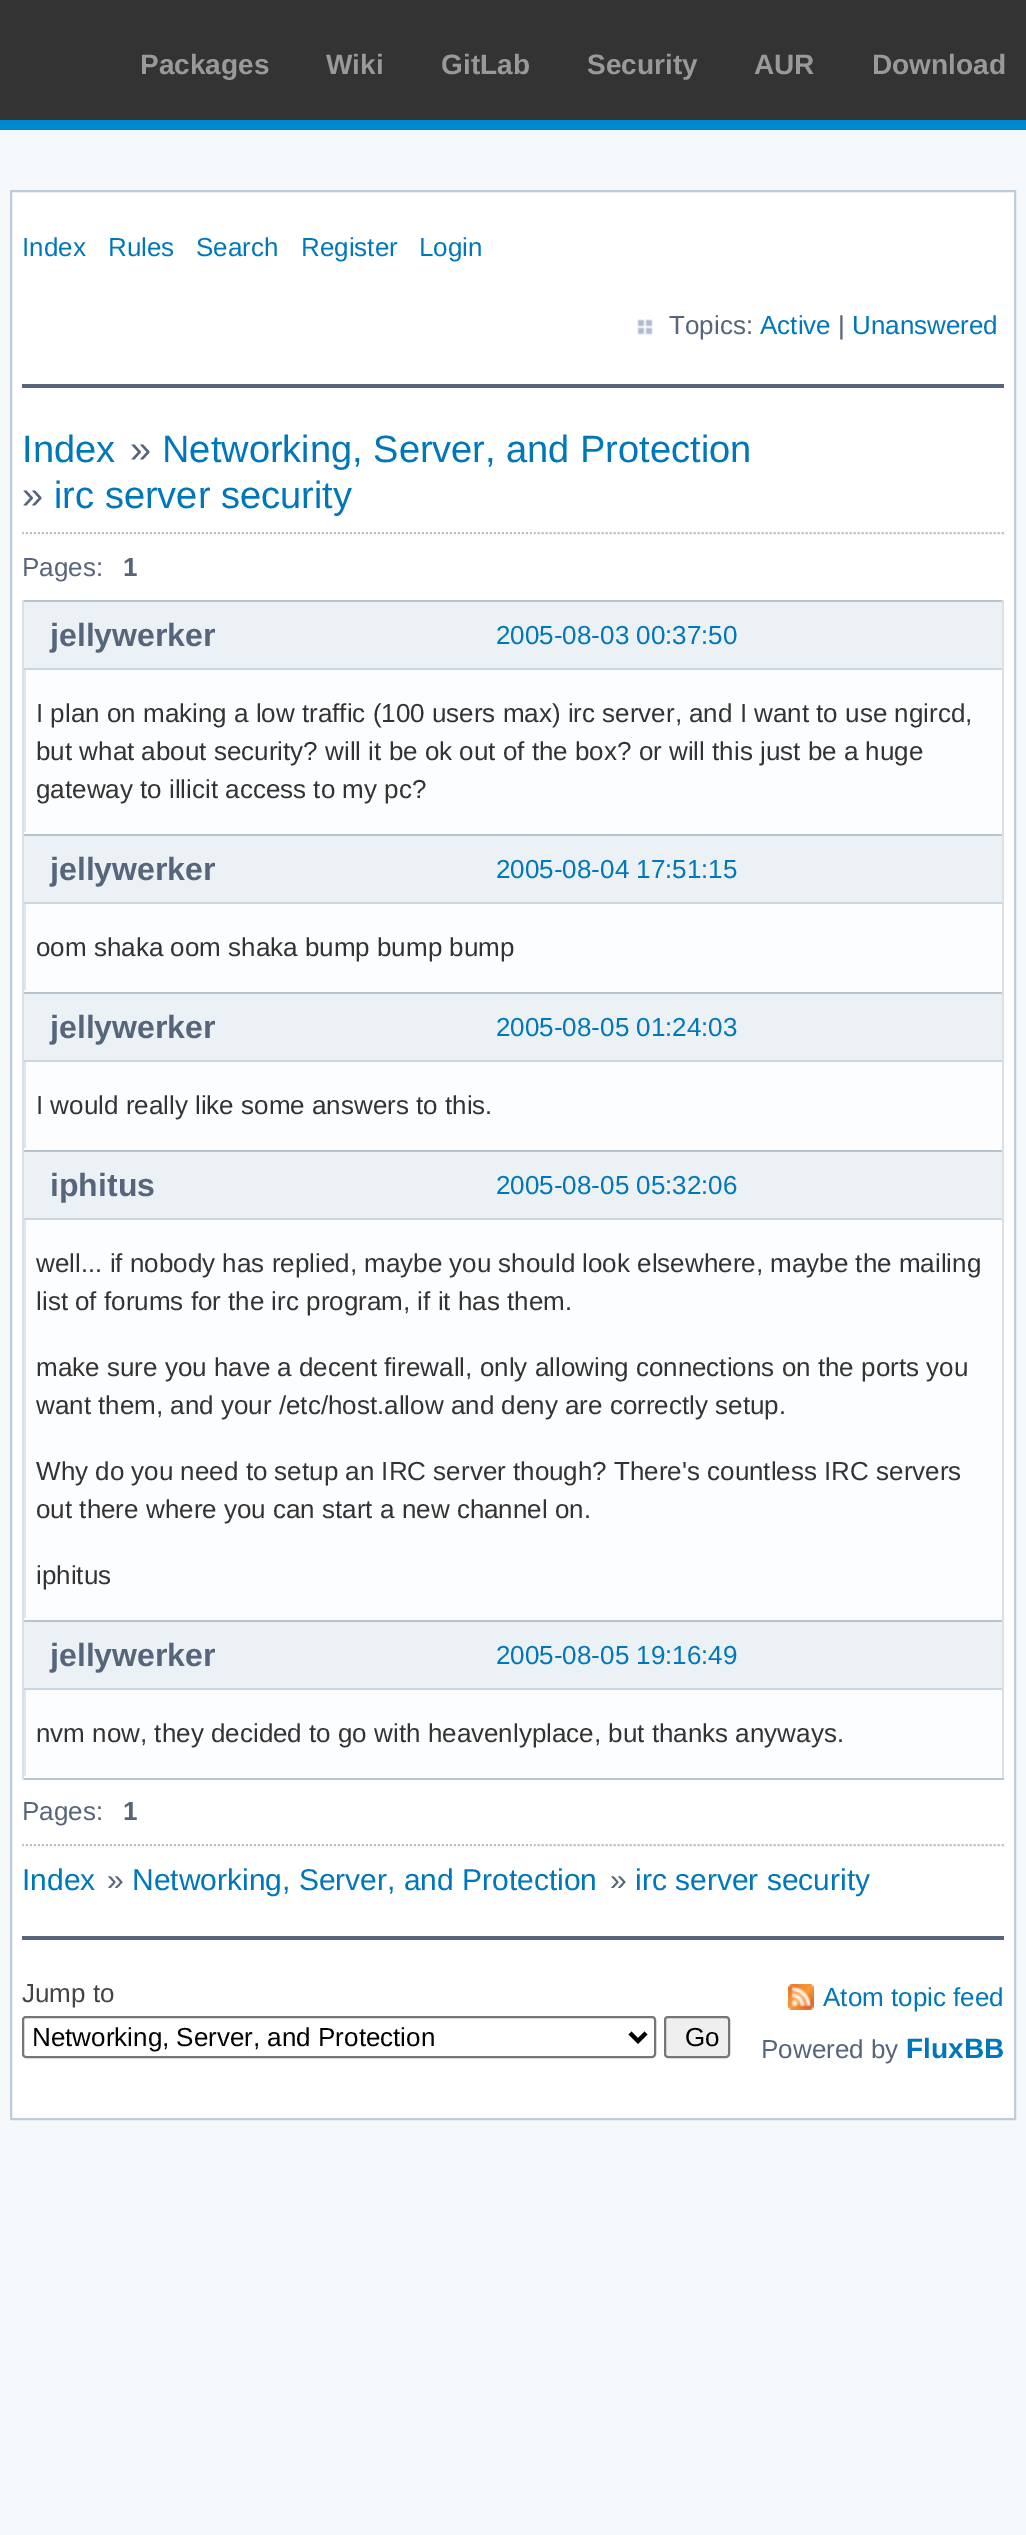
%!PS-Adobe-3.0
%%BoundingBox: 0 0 1026 2535
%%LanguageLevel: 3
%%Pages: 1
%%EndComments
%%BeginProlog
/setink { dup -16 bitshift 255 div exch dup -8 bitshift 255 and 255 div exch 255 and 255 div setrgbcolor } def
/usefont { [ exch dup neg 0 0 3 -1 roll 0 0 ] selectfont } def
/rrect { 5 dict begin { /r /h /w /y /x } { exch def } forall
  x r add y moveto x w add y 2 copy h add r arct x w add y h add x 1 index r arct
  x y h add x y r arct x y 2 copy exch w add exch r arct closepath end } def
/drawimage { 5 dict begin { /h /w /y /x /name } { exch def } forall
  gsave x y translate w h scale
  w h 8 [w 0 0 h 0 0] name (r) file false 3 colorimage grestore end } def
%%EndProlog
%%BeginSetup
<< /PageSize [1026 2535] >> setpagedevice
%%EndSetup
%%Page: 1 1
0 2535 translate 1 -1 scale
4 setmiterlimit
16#F6F9FC setink
0 0 1026 2535 rectfill
16#333333 setink
0 0 1026 120 rectfill
16#0088CC setink
0 120 1026 10 rectfill
/LiberationSans-Bold 28 usefont
16#999999 setink
[
    [(Packages) 140 74]
    [(Wiki) 326 74]
    [(GitLab) 441 74]
    [(Security) 587 74]
    [(AUR) 754 74]
    [(Download) 872 74]
] { aload pop moveto show } forall
16#FFFFFF setink
11 191 moveto 1015 191 lineto 1015 2119 lineto 11 2119 lineto closepath gsave fill grestore
16#BBCCDD setink
2 setlinewidth
stroke
/LiberationSans-Regular 26 usefont
16#0077BB setink
[
    [(Index) 22 256]
    [(Rules) 108 256]
    [(Search) 196 256]
    [(Register) 301 256]
    [(Login) 419 256]
] { aload pop moveto show } forall
(img1.raw) 637 319 16 16 drawimage
16#566579 setink
669 334 moveto (Topics:) show
16#0077BB setink
760 334 moveto (Active) show
16#566579 setink
838 334 moveto (|) show
16#0077BB setink
852 334 moveto (Unanswered) show
16#566579 setink
22 384 982 4 rectfill
22 1936 982 4 rectfill
/LiberationSans-Regular 38 usefont
16#0077BB setink
22 462 moveto (Index) show
16#566579 setink
130 462 moveto (») show
16#0077BB setink
162 462 moveto (Networking, Server, and Protection) show
16#566579 setink
22 508 moveto (») show
16#0077BB setink
54 508 moveto (irc server security) show
16#B9C5CE setink
[2 2] 0 setdash
22 533 moveto 1004 533 lineto stroke
/LiberationSans-Regular 26 usefont
16#566579 setink
22 576 moveto (Pages:) show
/LiberationSans-Bold 26 usefont
123 576 moveto (1) show
[
    [24 670 978 164 16#FCFDFE]
    [22 600 982 2 16#B9C5CE]
    [1002 600 2 236 16#D9E1E7]
    [22 600 2 236 16#D9E1E7]
    [24 670 2 162 16#DFE6EE]
    [24 602 978 66 16#EBF1F5]
] { aload pop setink rectfill } forall
/LiberationSans-Bold 32 usefont
16#566579 setink
50 646 moveto (jellywerker) show
/LiberationSans-Regular 26 usefont
16#333333 setink
[
    [(I plan on making a low traffic \(100 users max\) irc server, and I want to use ngircd,) 36 722]
    [(but what about security? will it be ok out of the box? or will this just be a huge) 36 760]
    [(gateway to illicit access to my pc?) 36 798]
] { aload pop moveto show } forall
16#CAD7E1 setink
24 668 978 2 rectfill
16#0077BB setink
496 644 moveto (2005-08-03 00:37:50) show
[
    [24 904 978 88 16#FCFDFE]
    [22 834 982 2 16#B9C5CE]
    [1002 834 2 160 16#D9E1E7]
    [22 834 2 160 16#D9E1E7]
    [24 904 2 86 16#DFE6EE]
    [24 836 978 66 16#EBF1F5]
] { aload pop setink rectfill } forall
/LiberationSans-Bold 32 usefont
16#566579 setink
50 880 moveto (jellywerker) show
/LiberationSans-Regular 26 usefont
16#333333 setink
36 956 moveto (oom shaka oom shaka bump bump bump) show
16#CAD7E1 setink
24 902 978 2 rectfill
16#0077BB setink
496 878 moveto (2005-08-04 17:51:15) show
[
    [24 1062 978 88 16#FCFDFE]
    [22 992 982 2 16#B9C5CE]
    [1002 992 2 160 16#D9E1E7]
    [22 992 2 160 16#D9E1E7]
    [24 1062 2 86 16#DFE6EE]
    [24 994 978 66 16#EBF1F5]
] { aload pop setink rectfill } forall
/LiberationSans-Bold 32 usefont
16#566579 setink
50 1038 moveto (jellywerker) show
/LiberationSans-Regular 26 usefont
16#333333 setink
36 1114 moveto (I would really like some answers to this.) show
16#CAD7E1 setink
24 1060 978 2 rectfill
16#0077BB setink
496 1036 moveto (2005-08-05 01:24:03) show
[
    [24 1220 978 400 16#FCFDFE]
    [22 1150 982 2 16#B9C5CE]
    [1002 1150 2 472 16#D9E1E7]
    [22 1150 2 472 16#D9E1E7]
    [24 1220 2 398 16#DFE6EE]
    [24 1152 978 66 16#EBF1F5]
] { aload pop setink rectfill } forall
/LiberationSans-Bold 32 usefont
16#566579 setink
50 1196 moveto (iphitus) show
/LiberationSans-Regular 26 usefont
16#333333 setink
[
    [(well... if nobody has replied, maybe you should look elsewhere, maybe the mailing) 36 1272]
    [(list of forums for the irc program, if it has them.) 36 1310]
    [(make sure you have a decent firewall, only allowing connections on the ports you) 36 1376]
    [(want them, and your /etc/host.allow and deny are correctly setup.) 36 1414]
    [(Why do you need to setup an IRC server though? There's countless IRC servers) 36 1480]
    [(out there where you can start a new channel on.) 36 1518]
    [(iphitus) 36 1584]
] { aload pop moveto show } forall
16#CAD7E1 setink
24 1218 978 2 rectfill
16#0077BB setink
496 1194 moveto (2005-08-05 05:32:06) show
[
    [24 1690 978 88 16#FCFDFE]
    [22 1620 982 2 16#B9C5CE]
    [1002 1620 2 160 16#D9E1E7]
    [22 1778 982 2 16#B9C5CE]
    [22 1620 2 160 16#D9E1E7]
    [24 1690 2 86 16#DFE6EE]
    [24 1622 978 66 16#EBF1F5]
] { aload pop setink rectfill } forall
/LiberationSans-Bold 32 usefont
16#566579 setink
50 1666 moveto (jellywerker) show
/LiberationSans-Regular 26 usefont
16#333333 setink
36 1742 moveto (nvm now, they decided to go with heavenlyplace, but thanks anyways.) show
16#CAD7E1 setink
24 1688 978 2 rectfill
16#0077BB setink
496 1664 moveto (2005-08-05 19:16:49) show
16#B9C5CE setink
22 1845 moveto 1004 1845 lineto stroke
16#566579 setink
22 1820 moveto (Pages:) show
/LiberationSans-Bold 26 usefont
123 1820 moveto (1) show
/LiberationSans-Regular 30 usefont
16#0077BB setink
22 1890 moveto (Index) show
16#566579 setink
107 1890 moveto (») show
16#0077BB setink
132 1890 moveto (Networking, Server, and Protection) show
16#566579 setink
610 1890 moveto (») show
16#0077BB setink
635 1890 moveto (irc server security) show
/LiberationSans-Regular 26 usefont
16#444444 setink
22 2002 moveto (Jump to) show
16#767676 setink
[] 0 setdash
23 2017 632 40 3 rrect stroke
16#000000 setink
4 setlinewidth
630 2033 moveto 638 2041 lineto 646 2033 lineto stroke
32 2046 moveto (Networking, Server, and Protection) show
16#EFEFEF setink
665 2017 64 40 3 rrect gsave fill grestore
16#767676 setink
2 setlinewidth
stroke
16#000000 setink
685 2046 moveto (Go) show
(img2.raw) 788 1984 26 26 drawimage
16#0077BB setink
823 2006 moveto (Atom topic feed) show
16#566579 setink
761 2058 moveto (Powered by) show
/LiberationSans-Bold 28 usefont
16#0077BB setink
906 2058 moveto (FluxBB) show
showpage
%%EOF
